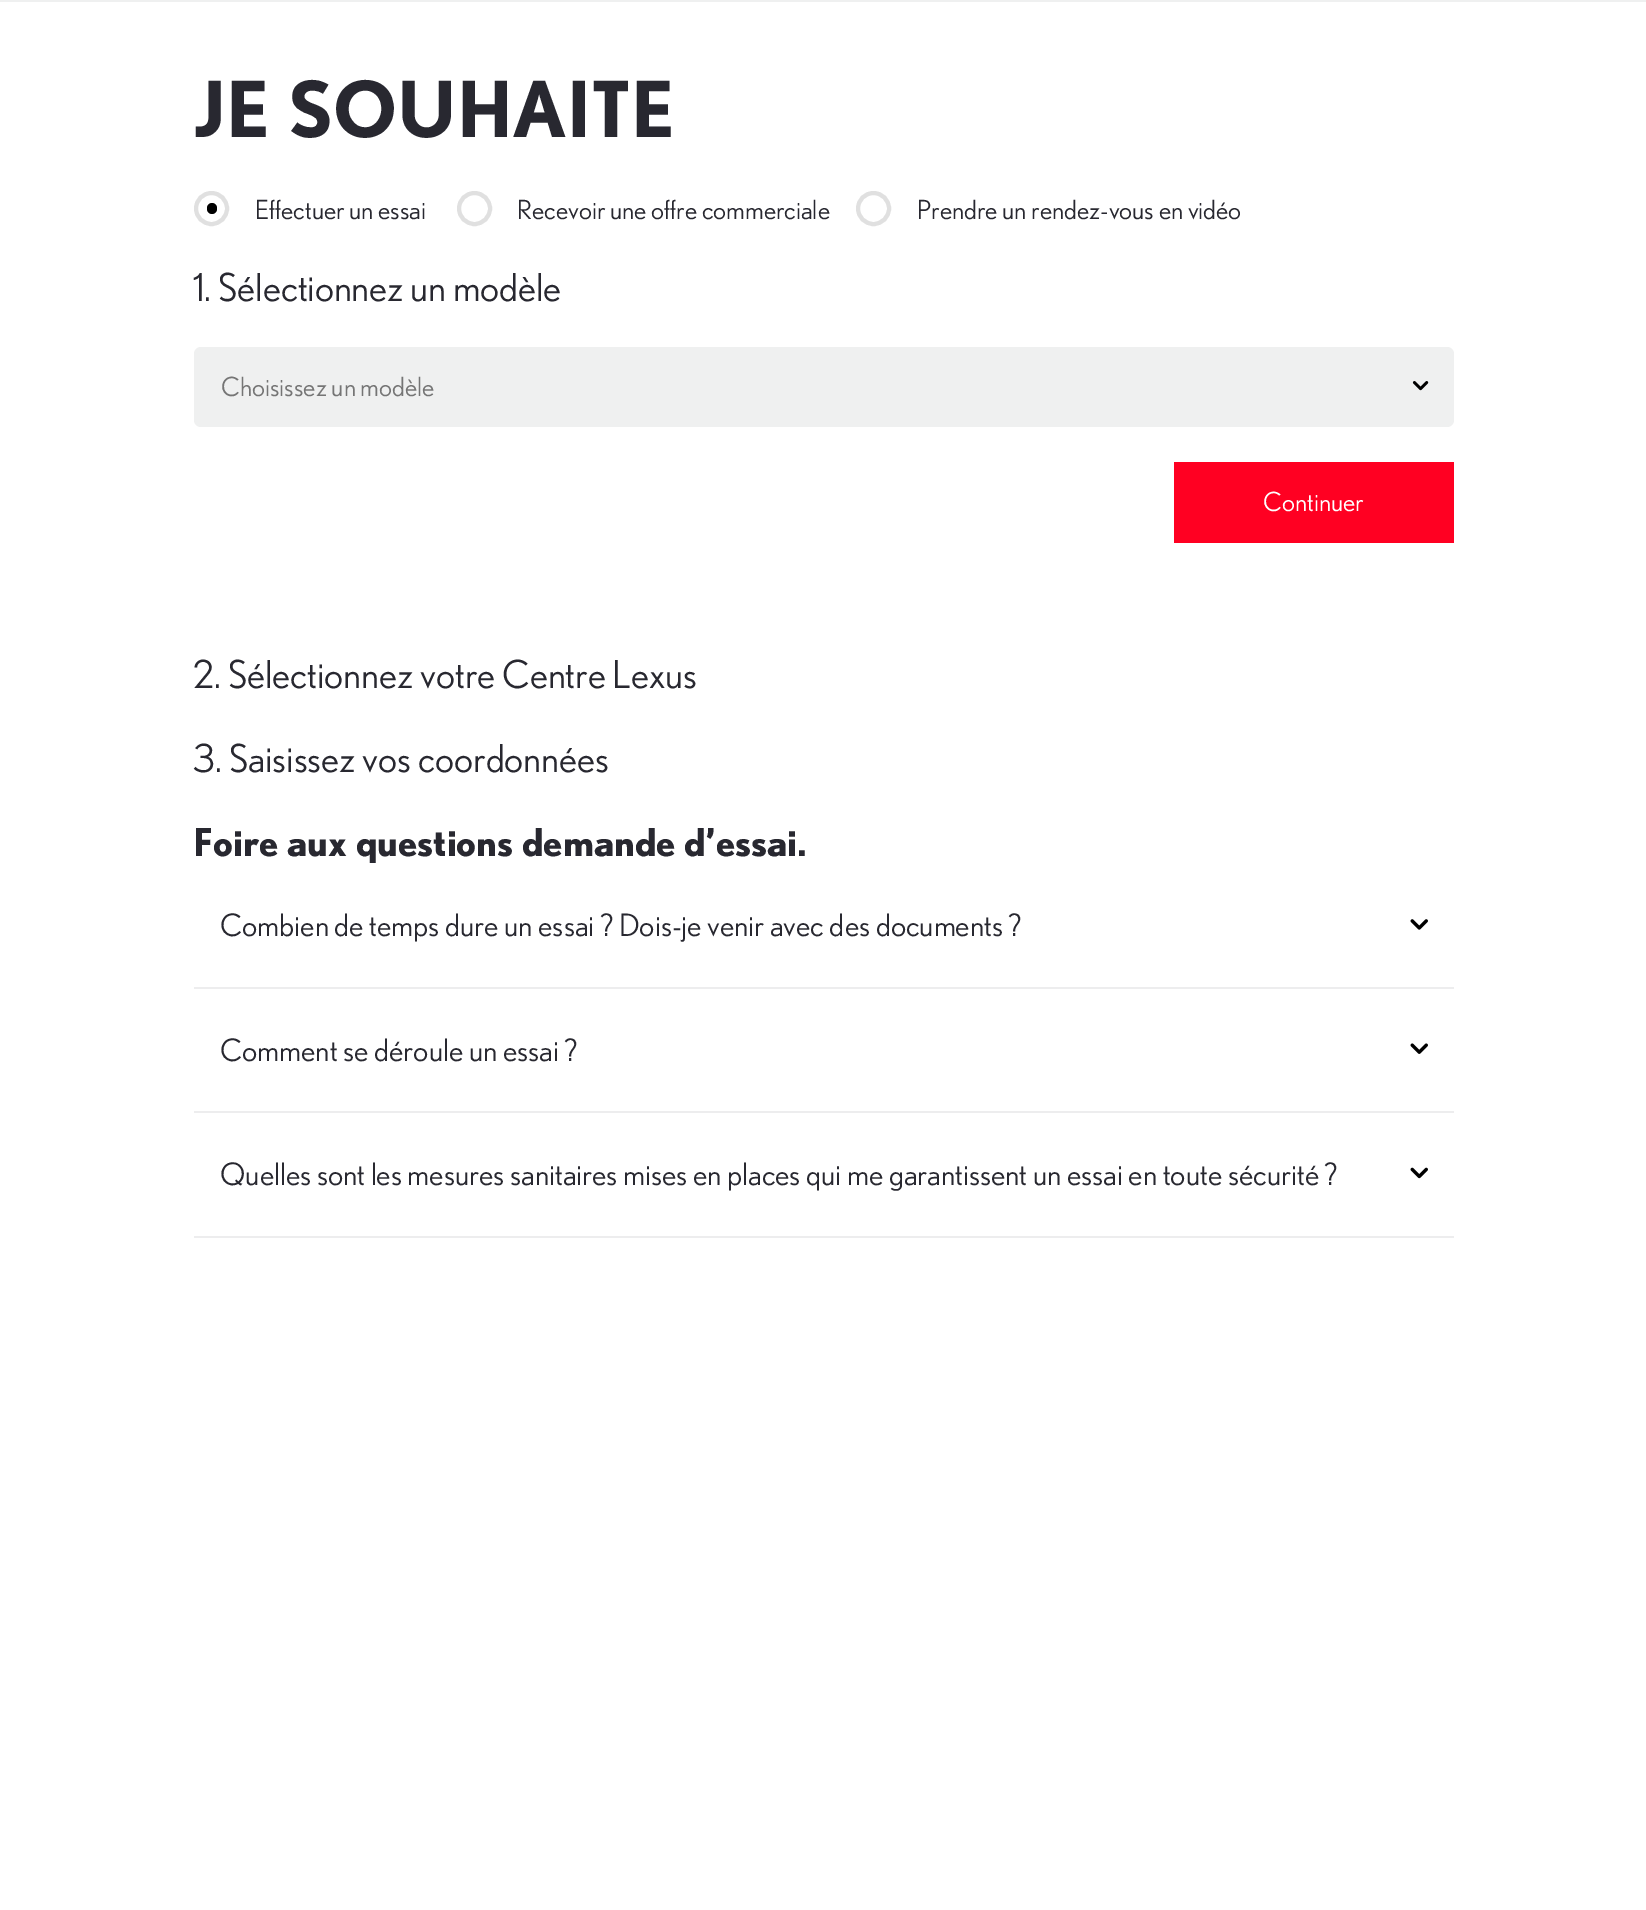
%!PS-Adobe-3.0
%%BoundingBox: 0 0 1646 1910
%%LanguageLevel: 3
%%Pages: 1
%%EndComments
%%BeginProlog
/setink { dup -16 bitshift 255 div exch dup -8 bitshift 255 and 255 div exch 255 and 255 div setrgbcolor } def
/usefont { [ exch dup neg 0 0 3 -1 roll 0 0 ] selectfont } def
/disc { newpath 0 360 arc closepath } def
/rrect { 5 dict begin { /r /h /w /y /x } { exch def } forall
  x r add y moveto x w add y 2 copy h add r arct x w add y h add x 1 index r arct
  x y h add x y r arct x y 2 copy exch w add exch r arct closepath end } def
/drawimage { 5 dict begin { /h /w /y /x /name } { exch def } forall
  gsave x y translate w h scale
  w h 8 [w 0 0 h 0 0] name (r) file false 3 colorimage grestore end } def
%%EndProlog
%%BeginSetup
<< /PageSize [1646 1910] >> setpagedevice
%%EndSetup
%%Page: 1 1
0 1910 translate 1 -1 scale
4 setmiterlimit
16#FFFFFF setink
0 0 1646 1910 rectfill
16#EFF0F0 setink
0 0 1646 2 rectfill
/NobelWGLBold-Bold 77 usefont
16#282830 setink
193 137 moveto (JE SOUHAITE) show
16#E0E0E0 setink
4 setlinewidth
211.5 208.5 15.5 disc stroke
/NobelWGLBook-Regular 26.25 usefont
16#282830 setink
255 219 moveto (Effectuer un essai) show
16#000000 setink
207 203 10 11 5 rrect fill
16#E0E0E0 setink
474.5 208.5 15.5 disc stroke
16#282830 setink
517 219 moveto (Recevoir une offre commerciale) show
16#E0E0E0 setink
873.5 208.5 15.5 disc stroke
16#282830 setink
917 219 moveto (Prendre un rendez-vous en vidéo) show
/NobelWGLBook-Regular 38.5 usefont
193 301 moveto (1. Sélectionnez un modèle) show
16#EFF0F0 setink
194 347 1260 80 7 rrect fill
/NobelWGLBook-Regular 26.25 usefont
16#757575 setink
221 396 moveto (Choisissez un modèle) show
(img1.raw) 1412 381 17 10 drawimage
16#FF0022 setink
1174 462 280 81 rectfill
16#FFFFFF setink
1263 511 moveto (Continuer) show
/NobelWGLBook-Regular 38.5 usefont
16#282830 setink
193 688 moveto (2. Sélectionnez votre Centre Lexus) show
193 772 moveto (3. Saisissez vos coordonnées) show
/NobelWGLBold-Bold 38.5 usefont
193 856 moveto (Foire aux questions demande d’essai.) show
16#EDEDEE setink
194 987 1260 2 rectfill
/NobelWGLBook-Regular 30.8 usefont
16#282830 setink
220 936 moveto (Combien de temps dure un essai ? Dois-je venir avec des documents ?) show
(img2.raw) 1410 919 18 11 drawimage
16#EDEDEE setink
194 1111 1260 2 rectfill
16#282830 setink
220 1061 moveto (Comment se déroule un essai ?) show
(img3.raw) 1410 1043 18 11 drawimage
16#EDEDEE setink
194 1236 1260 2 rectfill
16#282830 setink
220 1185 moveto (Quelles sont les mesures sanitaires mises en places qui me garantissent un essai en toute sécurité ?) show
(img4.raw) 1410 1167 18 12 drawimage
showpage
%%EOF
